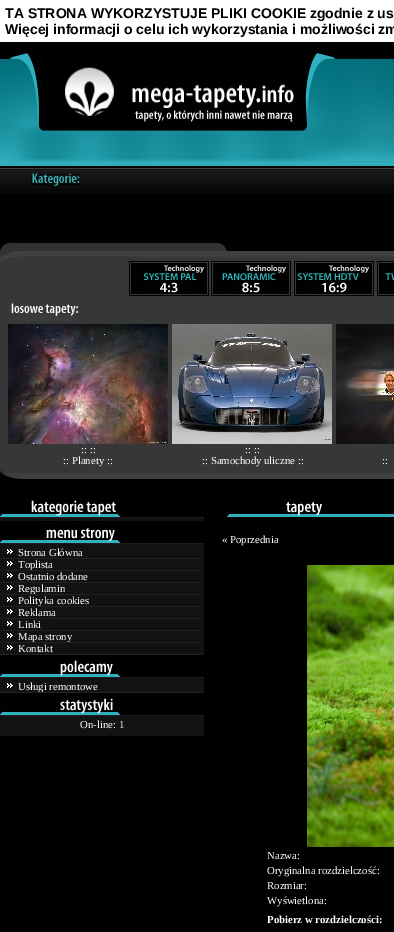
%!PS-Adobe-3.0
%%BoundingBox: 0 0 394 932
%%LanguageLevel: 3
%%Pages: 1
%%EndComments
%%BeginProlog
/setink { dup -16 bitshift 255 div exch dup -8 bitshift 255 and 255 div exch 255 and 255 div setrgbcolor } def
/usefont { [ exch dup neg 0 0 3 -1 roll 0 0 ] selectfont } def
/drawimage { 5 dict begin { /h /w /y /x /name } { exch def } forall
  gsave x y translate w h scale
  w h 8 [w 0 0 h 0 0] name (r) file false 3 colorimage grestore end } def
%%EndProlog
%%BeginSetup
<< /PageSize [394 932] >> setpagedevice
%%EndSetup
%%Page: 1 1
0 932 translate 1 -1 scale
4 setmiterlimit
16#000000 setink
0 0 394 932 rectfill
16#FFFFFF setink
0 0 394 42 rectfill
/LiberationSans-Bold 14 usefont
16#000000 setink
5 18 moveto (TA STRONA WYKORZYSTUJE PLIKI COOKIE zgodnie z us) show
5 34 moveto (Więcej informacji o celu ich wykorzystania i możliwości zm) show
(img1.raw) 0 162 394 32 drawimage
(img2.raw) 0 53 394 109 drawimage
(img3.raw) 31 173 49 13 drawimage
(img4.raw) 0 243 394 18 drawimage
16#373737 setink
0 261 394 208 rectfill
(img5.raw) 129 261 80 35 drawimage
(img6.raw) 211 261 80 35 drawimage
(img7.raw) 294 261 80 35 drawimage
(img8.raw) 377 261 17 35 drawimage
(img9.raw) 11 300 67 21 drawimage
(img10.raw) 8 324 160 120 drawimage
/LiberationSerif-Regular 10.75 usefont
16#FFFFFF setink
81 453 moveto (:: ::) show
63 464 moveto (:: Planety ::) show
(img11.raw) 172 324 160 120 drawimage
245 453 moveto (:: ::) show
202 464 moveto (:: Samochody uliczne ::) show
(img12.raw) 336 324 58 120 drawimage
382 464 moveto (::) show
(img13.raw) 0 469 394 10 drawimage
16#121212 setink
0 518 204 218 rectfill
(img14.raw) 0 500 204 18 drawimage
16#000000 setink
0 521 204 5 rectfill
(img15.raw) 0 526 204 18 drawimage
(img16.raw) 0 547 15 8 drawimage
16#FFFFFF setink
18 556 moveto (Strona Główna) show
16#222222 setink
0 558 202 1 rectfill
(img16.raw) 0 559 15 8 drawimage
16#FFFFFF setink
18 568 moveto (Toplista) show
16#222222 setink
0 570 202 1 rectfill
(img16.raw) 0 571 15 8 drawimage
16#FFFFFF setink
18 580 moveto (Ostatnio dodane) show
16#222222 setink
0 582 202 1 rectfill
(img16.raw) 0 583 15 8 drawimage
16#FFFFFF setink
18 592 moveto (Regulamin) show
16#222222 setink
0 594 202 1 rectfill
(img16.raw) 0 595 15 8 drawimage
16#FFFFFF setink
18 604 moveto (Polityka cookies) show
16#222222 setink
0 606 202 1 rectfill
(img16.raw) 0 607 15 8 drawimage
16#FFFFFF setink
18 616 moveto (Reklama) show
16#222222 setink
0 618 202 1 rectfill
(img16.raw) 0 619 15 8 drawimage
16#FFFFFF setink
18 628 moveto (Linki) show
16#222222 setink
0 630 202 1 rectfill
(img16.raw) 0 631 15 8 drawimage
16#FFFFFF setink
18 640 moveto (Mapa strony) show
16#222222 setink
0 642 202 1 rectfill
(img16.raw) 0 643 15 8 drawimage
16#FFFFFF setink
18 652 moveto (Kontakt) show
16#222222 setink
0 654 202 1 rectfill
16#000000 setink
0 655 204 5 rectfill
(img17.raw) 0 660 204 18 drawimage
(img16.raw) 0 681 15 8 drawimage
16#FFFFFF setink
18 690 moveto (Usługi remontowe) show
16#222222 setink
0 692 202 1 rectfill
16#000000 setink
0 693 204 5 rectfill
(img18.raw) 0 698 204 18 drawimage
16#FFFFFF setink
80 728 moveto (On-line: 1) show
(img19.raw) 227 502 167 15 drawimage
222 543 moveto (« Poprzednia) show
(img20.raw) 307 565 87 282 drawimage
[
    [(Nazwa:) 267 859]
    [(Oryginalna rozdzielczość:) 267 874]
    [(Rozmiar:) 267 889]
    [(Wyświetlona:) 267 904]
] { aload pop moveto show } forall
/LiberationSerif-Bold 10.75 usefont
267 923 moveto (Pobierz w rozdzielczości:) show
showpage
%%EOF
